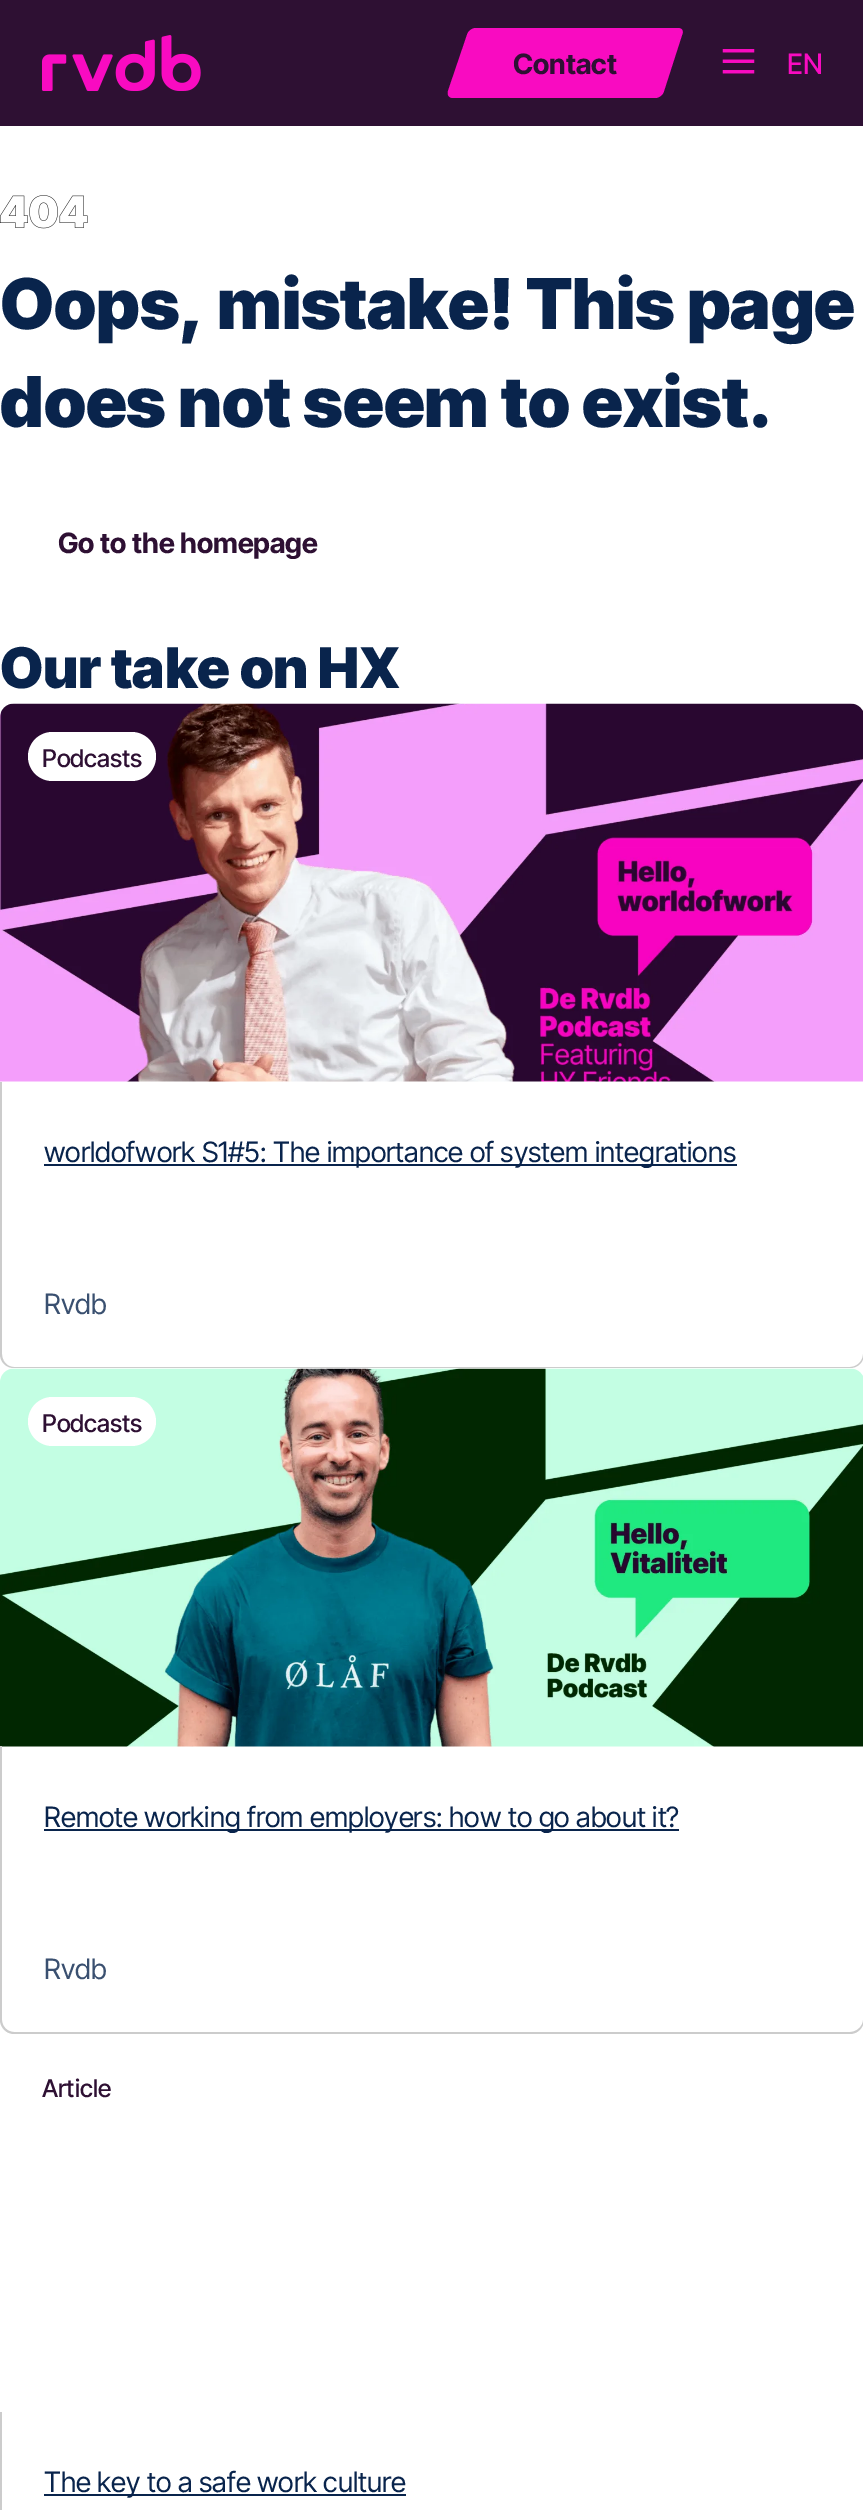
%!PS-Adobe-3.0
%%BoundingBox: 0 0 863 2510
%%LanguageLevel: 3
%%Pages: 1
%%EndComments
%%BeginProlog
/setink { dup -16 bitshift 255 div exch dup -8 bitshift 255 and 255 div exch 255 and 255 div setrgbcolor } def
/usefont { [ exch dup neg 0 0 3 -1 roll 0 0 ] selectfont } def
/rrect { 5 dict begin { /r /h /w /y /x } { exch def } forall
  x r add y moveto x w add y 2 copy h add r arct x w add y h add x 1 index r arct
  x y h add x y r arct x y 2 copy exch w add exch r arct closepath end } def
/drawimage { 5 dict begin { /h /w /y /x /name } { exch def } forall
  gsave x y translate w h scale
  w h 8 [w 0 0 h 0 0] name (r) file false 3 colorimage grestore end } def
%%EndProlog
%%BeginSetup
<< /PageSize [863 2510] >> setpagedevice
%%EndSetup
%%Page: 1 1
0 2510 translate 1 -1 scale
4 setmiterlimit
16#FFFFFF setink
0 0 863 2510 rectfill
16#2E1033 setink
0 0 863 126 rectfill
(img1.raw) 42 35 159 56 drawimage
16#F90BC1 setink
476 28 moveto 678 28 lineto 682 28 684 31 682 35 curveto 664 91 lineto 663 95 659 98 655 98 curveto 453 98 lineto 449 98 447 95 448 91 curveto 467 35 lineto 468 31 472 28 476 28 curveto closepath fill
/InterTight-Bold 28 usefont
16#2E1033 setink
513 74 moveto (Contact) show
(img2.raw) 722 49 33 25 drawimage
/InterTight-Medium 28 usefont
16#F90BC1 setink
787 74 moveto (EN) show
(img3.raw) 0 195 88 34 drawimage
/InterTight-Black 70 usefont
16#09244C setink
0 329 moveto (Oops, mistake! This page) show
0 427 moveto (does not seem to exist.) show
/InterTight-Bold 28 usefont
16#2E1033 setink
58 553 moveto (Go to the homepage) show
/InterTight-Black 56 usefont
16#09244C setink
0 688 moveto (Our take on HX) show
(img4.raw) 0 703 863 379 drawimage
16#FFFFFF setink
28 732 128 49 24.5 rrect fill
/InterTight-Medium 24.5 usefont
16#2E1033 setink
42 767 moveto (Podcasts) show
16#CCCCCC setink
0 1082 moveto 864 1082 lineto 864 1354 lineto 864 1362 858 1368 850 1368 curveto 14 1368 lineto 6 1368 0 1362 0 1354 curveto closepath 2 1082 moveto 863 1082 lineto 863 1354 lineto 863 1361 857 1367 850 1367 curveto 14 1367 lineto 7 1367 2 1361 2 1354 curveto closepath eofill
16#09244C setink
44 1164 693 2 rectfill
/InterTight-Regular 28 usefont
44 1162 moveto (worldofwork S1#5: The importance of system integrations) show
16#3A5070 setink
44 1314 moveto (Rvdb) show
(img5.raw) 0 1368 863 379 drawimage
16#FFFFFF setink
28 1397 128 49 24.5 rrect fill
/InterTight-Medium 24.5 usefont
16#2E1033 setink
42 1432 moveto (Podcasts) show
16#CCCCCC setink
0 1746 moveto 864 1746 lineto 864 2020 lineto 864 2027 858 2034 850 2034 curveto 14 2034 lineto 6 2034 0 2027 0 2020 curveto closepath 2 1746 moveto 863 1746 lineto 863 2020 lineto 863 2026 857 2032 850 2032 curveto 14 2032 lineto 7 2032 2 2026 2 2020 curveto closepath eofill
16#09244C setink
44 1829 635 2 rectfill
/InterTight-Regular 28 usefont
44 1827 moveto (Remote working from employers: how to go about it?) show
16#3A5070 setink
44 1979 moveto (Rvdb) show
/InterTight-Medium 24.5 usefont
16#2E1033 setink
42 2097 moveto (Article) show
16#CCCCCC setink
0 2412 moveto 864 2412 lineto 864 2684 lineto 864 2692 858 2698 850 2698 curveto 14 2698 lineto 6 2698 0 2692 0 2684 curveto closepath 2 2412 moveto 863 2412 lineto 863 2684 lineto 863 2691 857 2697 850 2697 curveto 14 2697 lineto 7 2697 2 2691 2 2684 curveto closepath eofill
16#09244C setink
44 2494 362 2 rectfill
/InterTight-Regular 28 usefont
44 2492 moveto (The key to a safe work culture) show
showpage
%%EOF
